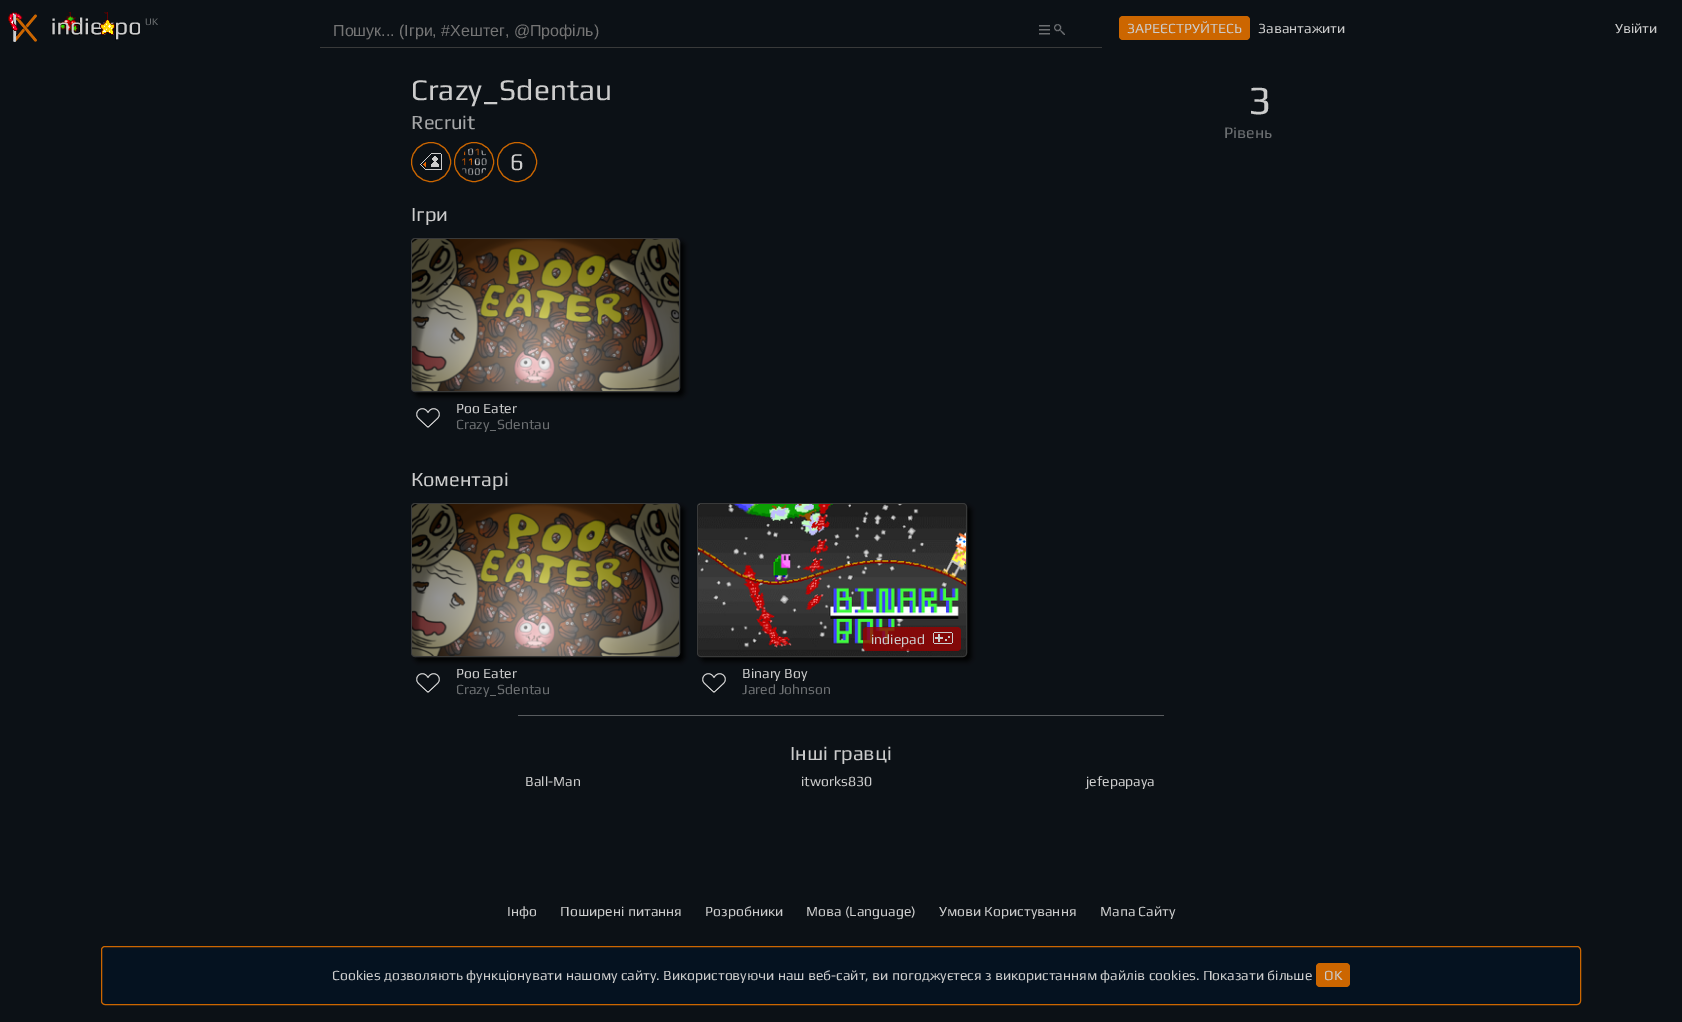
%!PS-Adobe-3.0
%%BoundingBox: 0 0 1682 1022
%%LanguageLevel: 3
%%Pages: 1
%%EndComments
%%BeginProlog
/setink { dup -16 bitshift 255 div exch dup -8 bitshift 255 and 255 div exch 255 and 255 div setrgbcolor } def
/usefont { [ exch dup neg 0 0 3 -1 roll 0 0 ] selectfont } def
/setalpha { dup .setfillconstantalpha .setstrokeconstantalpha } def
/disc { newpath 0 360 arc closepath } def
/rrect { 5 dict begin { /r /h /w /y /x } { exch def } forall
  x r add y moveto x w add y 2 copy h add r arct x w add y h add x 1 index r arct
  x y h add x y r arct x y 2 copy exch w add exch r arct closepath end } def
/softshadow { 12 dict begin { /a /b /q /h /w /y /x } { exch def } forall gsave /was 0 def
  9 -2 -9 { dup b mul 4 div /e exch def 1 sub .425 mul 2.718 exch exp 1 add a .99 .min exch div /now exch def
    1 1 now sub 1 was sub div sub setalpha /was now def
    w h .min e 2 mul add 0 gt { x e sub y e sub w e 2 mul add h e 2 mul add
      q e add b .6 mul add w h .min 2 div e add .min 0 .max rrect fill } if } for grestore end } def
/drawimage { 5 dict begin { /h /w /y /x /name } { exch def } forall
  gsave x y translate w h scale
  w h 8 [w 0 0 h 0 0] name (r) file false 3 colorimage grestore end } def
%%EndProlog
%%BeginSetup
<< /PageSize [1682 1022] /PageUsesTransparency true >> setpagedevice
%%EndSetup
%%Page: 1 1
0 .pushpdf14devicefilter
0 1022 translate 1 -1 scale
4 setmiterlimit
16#0C1116 setink
0 0 1682 1022 rectfill
(img1.raw) 8 12 132 30 drawimage
/Play-Regular 10 usefont
16#6C6F71 setink
145 25 moveto (UK) show
16#393A3A setink
320 47 782 1 rectfill
/LiberationSans-Regular 16 usefont
16#757575 setink
333 36 moveto (Пошук... \(Ігри, #Хештег, @Профіль\)) show
(img2.raw) 1039 24 26 11 drawimage
16#CC6600 setink
1119 16 131 24 4 rrect fill
/Play-Regular 14 usefont
16#CCCCCC setink
[
    [(ЗАРЕЄСТРУЙТЕСЬ) 1127 33]
    [(Завантажити) 1258 33]
    [(Увійти) 1615 33]
] { aload pop moveto show } forall
/Play-Regular 30 usefont
411 100 moveto (Crazy_Sdentau) show
/Play-Regular 20 usefont
16#A6A7A8 setink
411 129 moveto (Recruit) show
/Play-Regular 40 usefont
16#CCCCCC setink
1248 114 moveto (3) show
/Play-Regular 16 usefont
16#6C6F71 setink
1224 138 moveto (Рівень) show
16#CC6600 setink
431 162 19.5 disc stroke
474 162 19.5 disc stroke
517 162 19.5 disc stroke
(img3.raw) 420 153 22 17 drawimage
(img4.raw) 462 148 25 28 drawimage
(img5.raw) 511 154 12 17 drawimage
/Play-Regular 20 usefont
16#CCCCCC setink
411 221 moveto (Ігри) show
16#000000 setink
415 242 269 154 4 2.5 1 softshadow
16#393A3A setink
411.5 238.5 268 153 3.5 rrect stroke
(img6.raw) 412 239 267 152 drawimage
(img7.raw) 416 408 24 20 drawimage
/Play-Regular 14 usefont
16#CCCCCC setink
456 413 moveto (Poo Eater) show
16#6C6F71 setink
456 429 moveto (Crazy_Sdentau) show
/Play-Regular 20 usefont
16#CCCCCC setink
411 486 moveto (Коментарі) show
16#000000 setink
415 507 269 154 4 2.5 1 softshadow
16#393A3A setink
411.5 503.5 268 153 3.5 rrect stroke
(img6.raw) 412 504 267 152 drawimage
(img7.raw) 416 673 24 20 drawimage
/Play-Regular 14 usefont
16#CCCCCC setink
456 678 moveto (Poo Eater) show
16#6C6F71 setink
456 694 moveto (Crazy_Sdentau) show
16#000000 setink
701 507 270 154 4 2.5 1 softshadow
16#393A3A setink
697.5 503.5 269 153 3.5 rrect stroke
(img8.raw) 698 504 268 152 drawimage
0.8 setalpha
16#990000 setink
863 627 98 24 4 rrect fill
1 setalpha
16#CCCCCC setink
871 644 moveto (indiepad) show
(img9.raw) 933 632 20 12 drawimage
(img7.raw) 702 673 24 20 drawimage
742 678 moveto (Binary Boy) show
16#6C6F71 setink
742 694 moveto (Jared Johnson) show
16#595C5F setink
518 715 646 1 rectfill
/Play-Regular 20 usefont
16#CCCCCC setink
790 760 moveto (Інші гравці) show
/Play-Regular 14 usefont
[
    [(Ball-Man) 525 786]
    [(itworks830) 801 786]
    [(jefepapaya) 1086 786]
    [(Інфо) 507 916]
    [(Поширені питання) 560 916]
    [(Розробники) 705 916]
    [(Мова \(Language\)) 806 916]
    [(Умови Користування) 939 916]
    [(Мапа Сайту) 1100 916]
] { aload pop moveto show } forall
0.9 setalpha
16#041221 setink
101.5 946.5 1479 58 3.5 rrect fill
1 setalpha
16#CC6600 setink
101.5 946.5 1479 58 3.5 rrect stroke
16#CCCCCC setink
332 980 moveto (Cookies дозволяють функціонувати нашому сайту. Використовуючи наш веб-сайт, ви погоджуєтеся з використанням файлів cookies. Показати більше) show
16#CC6600 setink
1316 963 34 24 4 rrect fill
16#CCCCCC setink
1324 980 moveto (OK) show
.poppdf14devicefilter showpage
%%EOF
